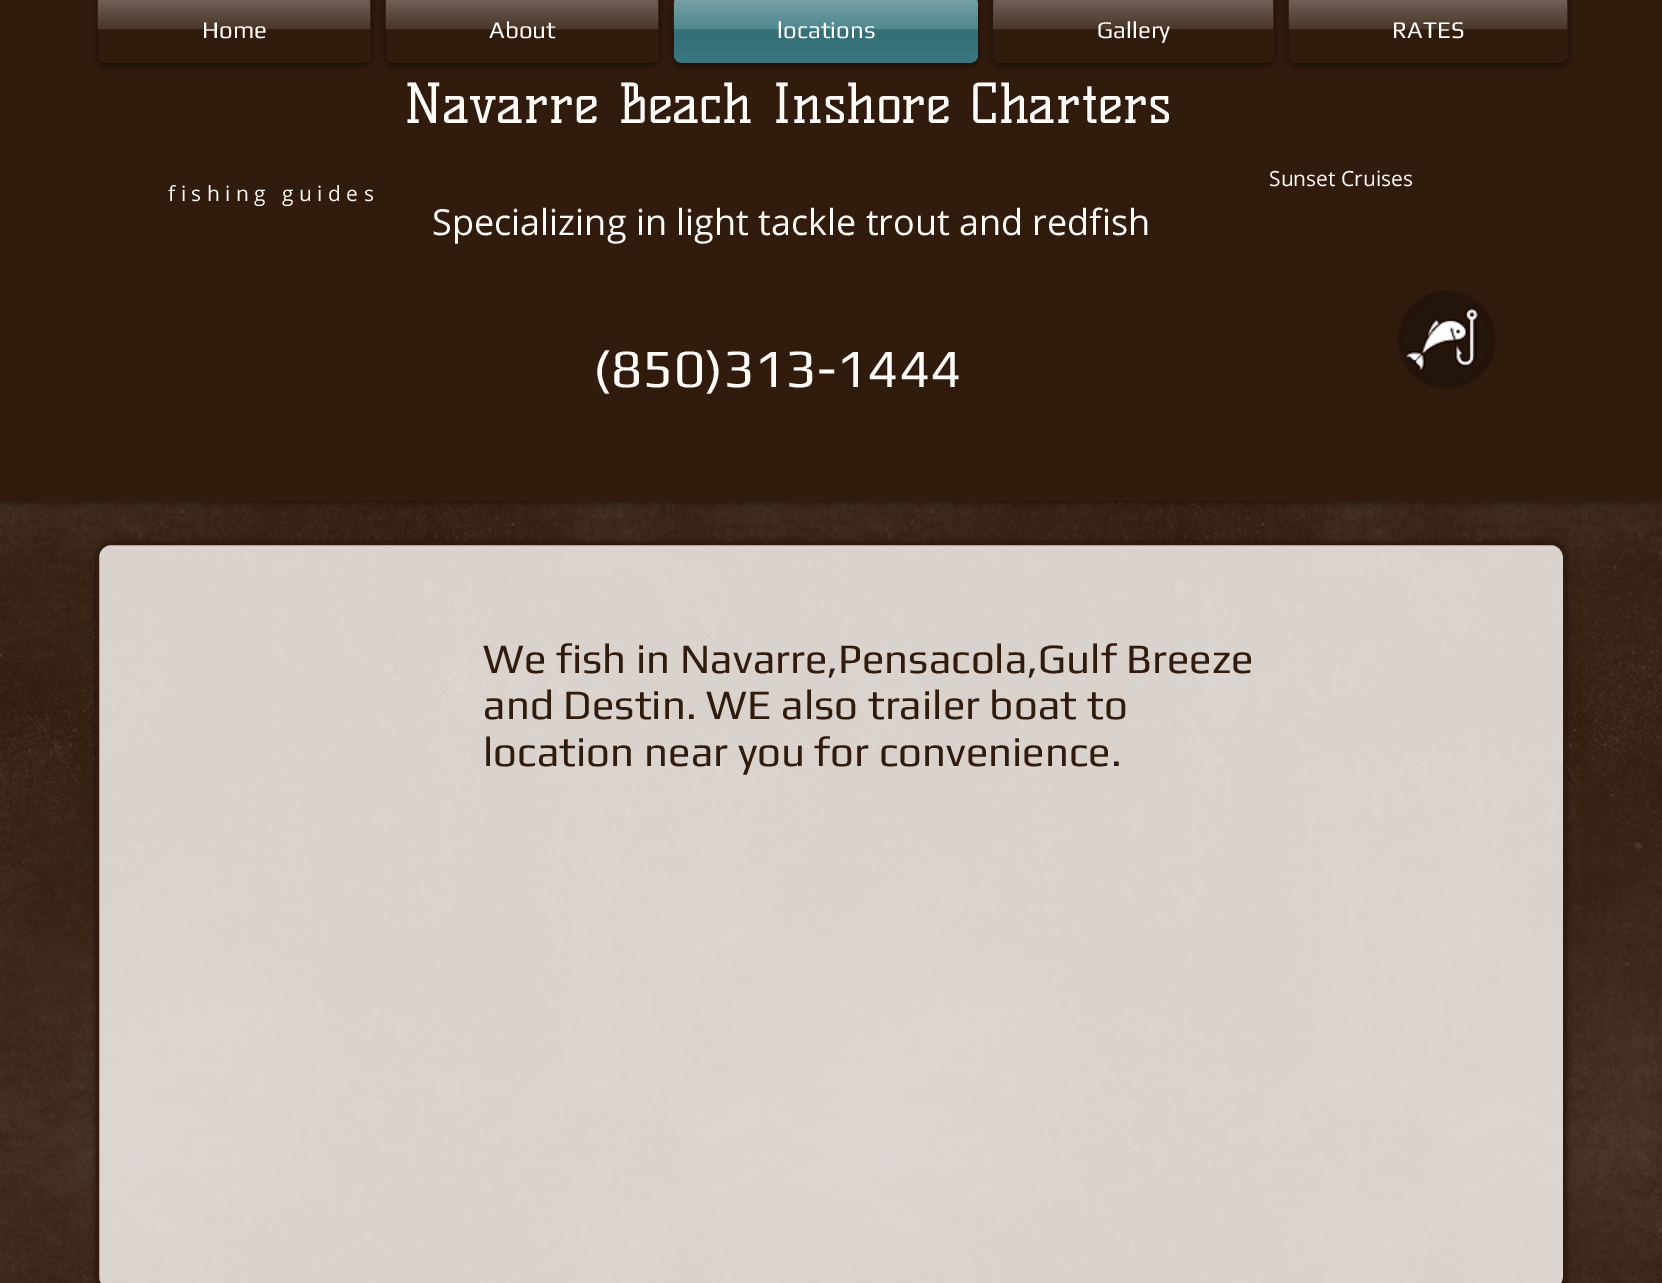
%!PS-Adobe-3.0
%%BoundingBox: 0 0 1662 1283
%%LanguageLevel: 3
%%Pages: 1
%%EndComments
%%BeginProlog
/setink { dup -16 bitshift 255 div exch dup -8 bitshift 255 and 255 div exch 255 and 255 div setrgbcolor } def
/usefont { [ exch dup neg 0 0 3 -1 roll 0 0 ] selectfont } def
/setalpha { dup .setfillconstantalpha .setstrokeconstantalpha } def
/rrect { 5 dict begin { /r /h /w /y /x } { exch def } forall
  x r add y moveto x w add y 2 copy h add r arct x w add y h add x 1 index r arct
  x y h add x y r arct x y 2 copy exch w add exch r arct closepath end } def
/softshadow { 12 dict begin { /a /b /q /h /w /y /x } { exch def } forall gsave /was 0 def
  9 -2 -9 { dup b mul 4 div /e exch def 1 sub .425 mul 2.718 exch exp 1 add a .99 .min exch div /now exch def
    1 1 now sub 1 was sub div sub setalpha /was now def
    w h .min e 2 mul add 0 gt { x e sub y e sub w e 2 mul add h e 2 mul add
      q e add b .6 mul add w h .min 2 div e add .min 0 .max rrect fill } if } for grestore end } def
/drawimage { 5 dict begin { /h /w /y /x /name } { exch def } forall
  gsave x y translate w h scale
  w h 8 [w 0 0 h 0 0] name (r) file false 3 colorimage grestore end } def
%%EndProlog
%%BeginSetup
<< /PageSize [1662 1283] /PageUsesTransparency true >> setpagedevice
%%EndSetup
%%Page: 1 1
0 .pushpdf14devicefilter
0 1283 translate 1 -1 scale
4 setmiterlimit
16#301B0C setink
0 0 1662 1283 rectfill
(img6.raw) 0 501 1662 782 drawimage
16#000000 setink
0 -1 1662 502 0 4 0.7 softshadow
16#301B0C setink
0 0 1662 501 rectfill
16#000000 setink
98 -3 273 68 8 3 0.6 softshadow
16#301B0C setink
98 -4 273 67 8 rrect fill
(img1.raw) 97 0 274 30 drawimage
/Play-Regular 24 usefont
16#FFFBF8 setink
202 38 moveto (Home) show
16#000000 setink
386 -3 273 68 8 3 0.6 softshadow
16#301B0C setink
386 -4 273 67 8 rrect fill
(img1.raw) 385 0 274 30 drawimage
16#FFFBF8 setink
489 38 moveto (About) show
16#000000 setink
674 -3 304 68 8 3 0.6 softshadow
16#38777F setink
674 -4 304 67 8 rrect fill
(img2.raw) 673 0 305 54 drawimage
16#FFFBF8 setink
777 38 moveto (locations) show
16#000000 setink
993 -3 281 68 8 3 0.6 softshadow
16#301B0C setink
993 -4 281 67 8 rrect fill
(img3.raw) 993 0 281 30 drawimage
16#FFFBF8 setink
1097 38 moveto (Gallery) show
16#000000 setink
1289 -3 279 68 8 3 0.6 softshadow
16#301B0C setink
1289 -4 279 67 8 rrect fill
(img4.raw) 1288 0 280 30 drawimage
16#FFFBF8 setink
1392 38 moveto (RATES) show
/KellySlab-Regular 54 usefont
404 123 moveto (Navarre Beach Inshore Charters) show
/OpenSans-Regular 21 usefont
1269 186 moveto (Sunset Cruises) show
168 201 moveto (f i s h i n g   g u i d e s) show
/Play-Regular 54 usefont
593 387 moveto (\(850\)313-1444) show
/OpenSans-Regular 36 usefont
432 235 moveto (Specializing in light tackle trout and redfish) show
(img5.raw) 1398 291 98 98 drawimage
gsave
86 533 moveto 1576 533 lineto 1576 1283 lineto 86 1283 lineto closepath 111 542 moveto 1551 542 lineto 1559.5 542 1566 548.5 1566 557 curveto 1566 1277 lineto 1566 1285.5 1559.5 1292 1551 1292 curveto 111 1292 lineto 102.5 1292 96 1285.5 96 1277 curveto 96 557 lineto 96 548.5 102.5 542 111 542 curveto closepath eoclip newpath
16#000000 setink
96 543 1470 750 15 3 0.6 softshadow
grestore
0.81 setalpha
97.5 543.5 1467 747 13.5 rrect fill
1 setalpha
16#301B0C setink
3 setlinewidth
97.5 543.5 1467 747 13.5 rrect stroke
/Play-Regular 42 usefont
[
    [(We fish in Navarre,Pensacola,Gulf Breeze) 483 673]
    [(and Destin. WE also trailer boat to) 483 719]
    [(location near you for convenience.) 483 766]
] { aload pop moveto show } forall
.poppdf14devicefilter showpage
%%EOF
